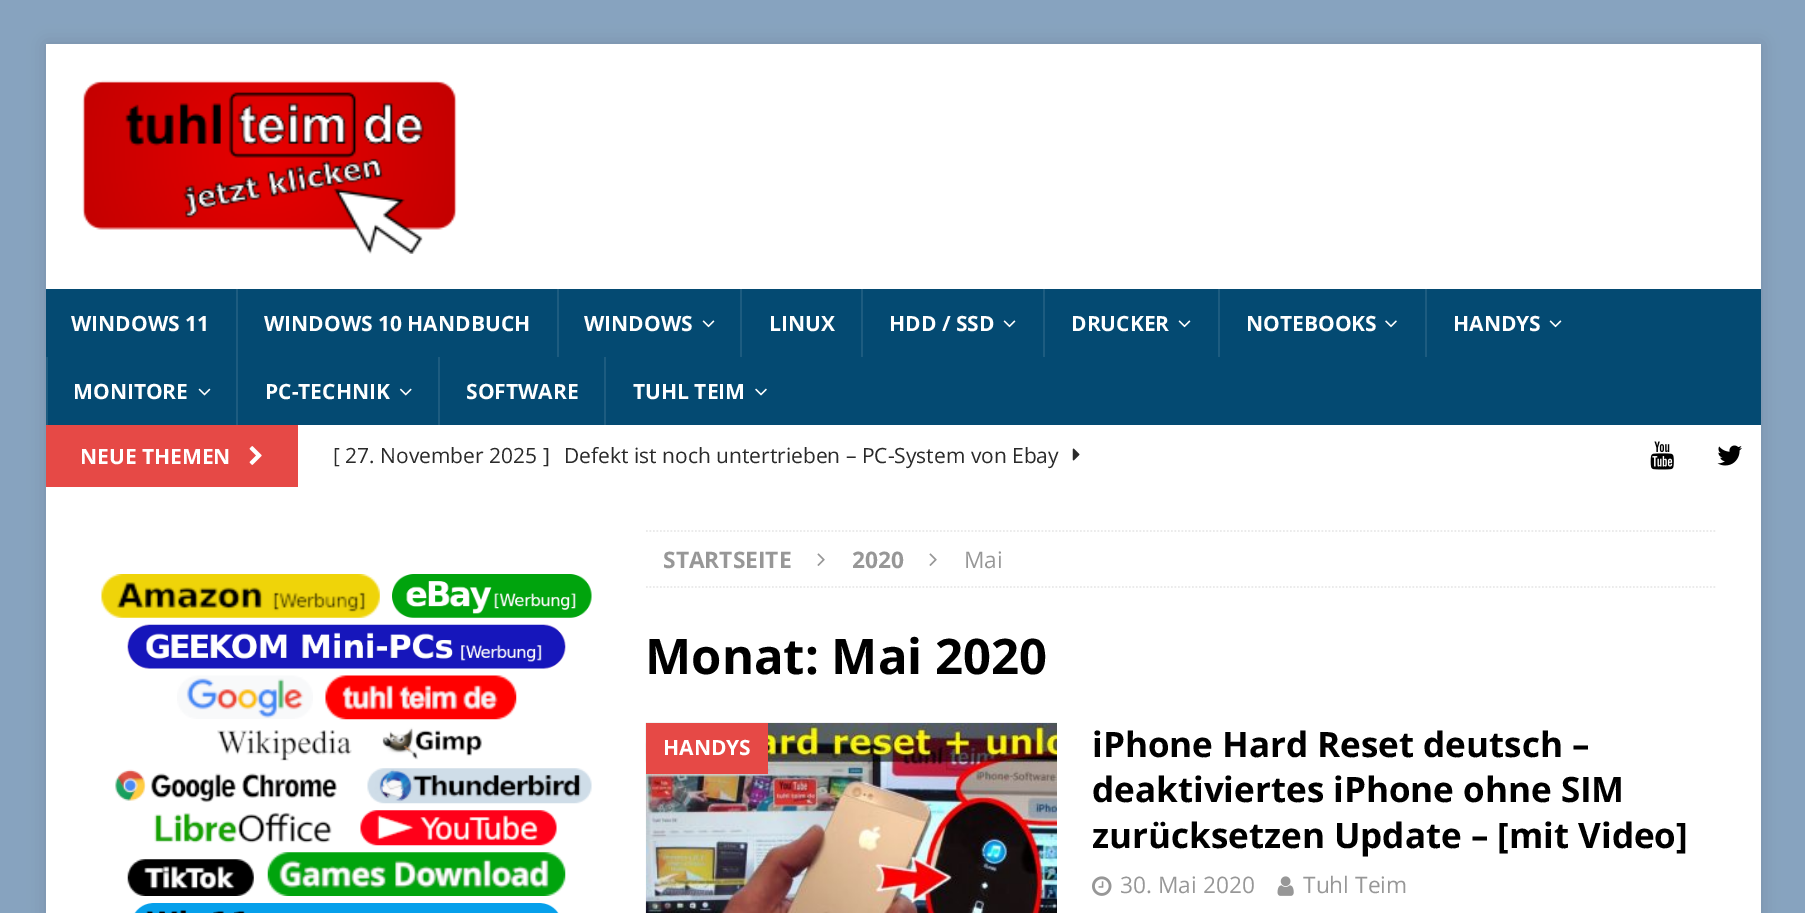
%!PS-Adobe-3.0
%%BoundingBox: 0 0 1805 913
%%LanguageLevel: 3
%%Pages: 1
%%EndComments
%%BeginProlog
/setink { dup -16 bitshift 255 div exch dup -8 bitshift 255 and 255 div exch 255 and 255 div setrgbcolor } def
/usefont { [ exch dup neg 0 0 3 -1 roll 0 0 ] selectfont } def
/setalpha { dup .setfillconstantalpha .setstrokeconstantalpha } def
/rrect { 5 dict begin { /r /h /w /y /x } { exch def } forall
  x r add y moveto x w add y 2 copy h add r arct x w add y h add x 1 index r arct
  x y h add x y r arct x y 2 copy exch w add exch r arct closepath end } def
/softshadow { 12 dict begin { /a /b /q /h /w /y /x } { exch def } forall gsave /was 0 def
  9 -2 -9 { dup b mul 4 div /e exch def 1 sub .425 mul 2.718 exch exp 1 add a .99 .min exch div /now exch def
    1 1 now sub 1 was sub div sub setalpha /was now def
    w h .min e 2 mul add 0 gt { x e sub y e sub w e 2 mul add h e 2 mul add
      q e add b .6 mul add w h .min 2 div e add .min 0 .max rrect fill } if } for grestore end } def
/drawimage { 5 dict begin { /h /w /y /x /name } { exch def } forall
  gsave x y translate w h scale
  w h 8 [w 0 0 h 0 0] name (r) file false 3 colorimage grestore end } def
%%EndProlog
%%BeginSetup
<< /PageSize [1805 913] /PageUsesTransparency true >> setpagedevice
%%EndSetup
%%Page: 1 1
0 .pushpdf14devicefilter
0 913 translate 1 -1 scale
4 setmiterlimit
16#87A3BF setink
0 0 1805 913 rectfill
16#323232 setink
46 44 1715 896 0 9 0.17 softshadow
16#FFFFFF setink
46 44 1715 245 rectfill
(img1.raw) 82 80 375 174 drawimage
16#044A72 setink
46 289 1715 136 rectfill
/OpenSans-Bold 21 usefont
16#FFFFFF setink
71 331 moveto (WINDOWS 11) show
16#1D5C80 setink
236 289 2 136 rectfill
16#FFFFFF setink
264 331 moveto (WINDOWS 10 HANDBUCH) show
16#1D5C80 setink
557 289 2 68 rectfill
16#FFFFFF setink
584 331 moveto (WINDOWS) show
(img2.raw) 702 320 13 8 drawimage
16#1D5C80 setink
740 289 2 68 rectfill
16#FFFFFF setink
769 331 moveto (LINUX) show
16#1D5C80 setink
861 289 2 68 rectfill
16#FFFFFF setink
889 331 moveto (HDD / SSD) show
(img2.raw) 1003 320 13 8 drawimage
16#1D5C80 setink
1043 289 2 68 rectfill
16#FFFFFF setink
1071 331 moveto (DRUCKER) show
(img2.raw) 1178 320 13 8 drawimage
16#1D5C80 setink
1218 289 2 68 rectfill
16#FFFFFF setink
1246 331 moveto (NOTEBOOKS) show
(img3.raw) 1385 320 12 8 drawimage
16#1D5C80 setink
1425 289 2 68 rectfill
16#FFFFFF setink
1453 331 moveto (HANDYS) show
(img2.raw) 1549 320 13 8 drawimage
16#1D5C80 setink
46 357 2 68 rectfill
16#FFFFFF setink
73 399 moveto (MONITORE) show
(img4.raw) 198 388 13 8 drawimage
265 399 moveto (PC-TECHNIK) show
(img5.raw) 399 388 13 8 drawimage
16#1D5C80 setink
438 357 2 68 rectfill
16#FFFFFF setink
466 399 moveto (SOFTWARE) show
16#1D5C80 setink
604 357 2 68 rectfill
16#FFFFFF setink
633 399 moveto (TUHL TEIM) show
(img6.raw) 755 388 12 8 drawimage
298 425 1463 62 rectfill
16#E64946 setink
46 425 252 62 rectfill
16#FFFFFF setink
80 464 moveto (NEUE THEMEN) show
(img7.raw) 249 446 13 19 drawimage
/OpenSans-Regular 21 usefont
16#2A2A2A setink
333 463 moveto ([ 27. November 2025 ]) show
564 463 moveto (Defekt ist noch untertrieben – PC-System von Ebay) show
(img8.raw) 1072 448 8 13 drawimage
(img9.raw) 1650 441 24 29 drawimage
(img10.raw) 1717 445 25 21 drawimage
16#FFFFFF setink
46 487 1715 426 rectfill
(img11.raw) 101 574 279 44 drawimage
(img12.raw) 392 574 200 44 drawimage
(img13.raw) 127 624 439 45 drawimage
(img14.raw) 177 675 136 44 drawimage
(img15.raw) 325 675 192 45 drawimage
(img16.raw) 217 730 135 31 drawimage
(img17.raw) 382 727 100 33 drawimage
(img18.raw) 115 769 222 34 drawimage
(img19.raw) 367 768 225 36 drawimage
(img20.raw) 154 812 178 31 drawimage
(img21.raw) 360 810 197 36 drawimage
(img22.raw) 127 859 127 37 drawimage
(img23.raw) 267 852 299 44 drawimage
(img24.raw) 134 903 425 10 drawimage
16#EBEBEB setink
1.8 setlinewidth
[1.75 1.75] 0 setdash
646 531 moveto 1717 531 lineto stroke
646 587 moveto 1717 587 lineto stroke
/OpenSans-Bold 22.75 usefont
16#979797 setink
663 568 moveto (STARTSEITE) show
(img25.raw) 817 553 8 13 drawimage
852 568 moveto (2020) show
(img25.raw) 929 553 8 13 drawimage
/OpenSans-Regular 22.75 usefont
964 568 moveto (Mai) show
/OpenSans-Bold 49 usefont
16#000000 setink
645 674 moveto (Monat: Mai 2020) show
(img26.raw) 645 722 412 191 drawimage
16#E64946 setink
646 723 122 51 rectfill
/OpenSans-Bold 21 usefont
16#FFFFFF setink
663 755 moveto (HANDYS) show
/OpenSans-Bold 35 usefont
16#000000 setink
[
    [(iPhone Hard Reset deutsch –) 1092 757]
    [(deaktiviertes iPhone ohne SIM) 1092 802]
    [(zurücksetzen Update – [mit Video]) 1092 848]
] { aload pop moveto show } forall
(img27.raw) 1092 876 20 20 drawimage
/OpenSans-Regular 22.75 usefont
16#979797 setink
1120 893 moveto (30. Mai 2020) show
(img28.raw) 1277 876 17 20 drawimage
1303 893 moveto (Tuhl Teim) show
.poppdf14devicefilter showpage
%%EOF
